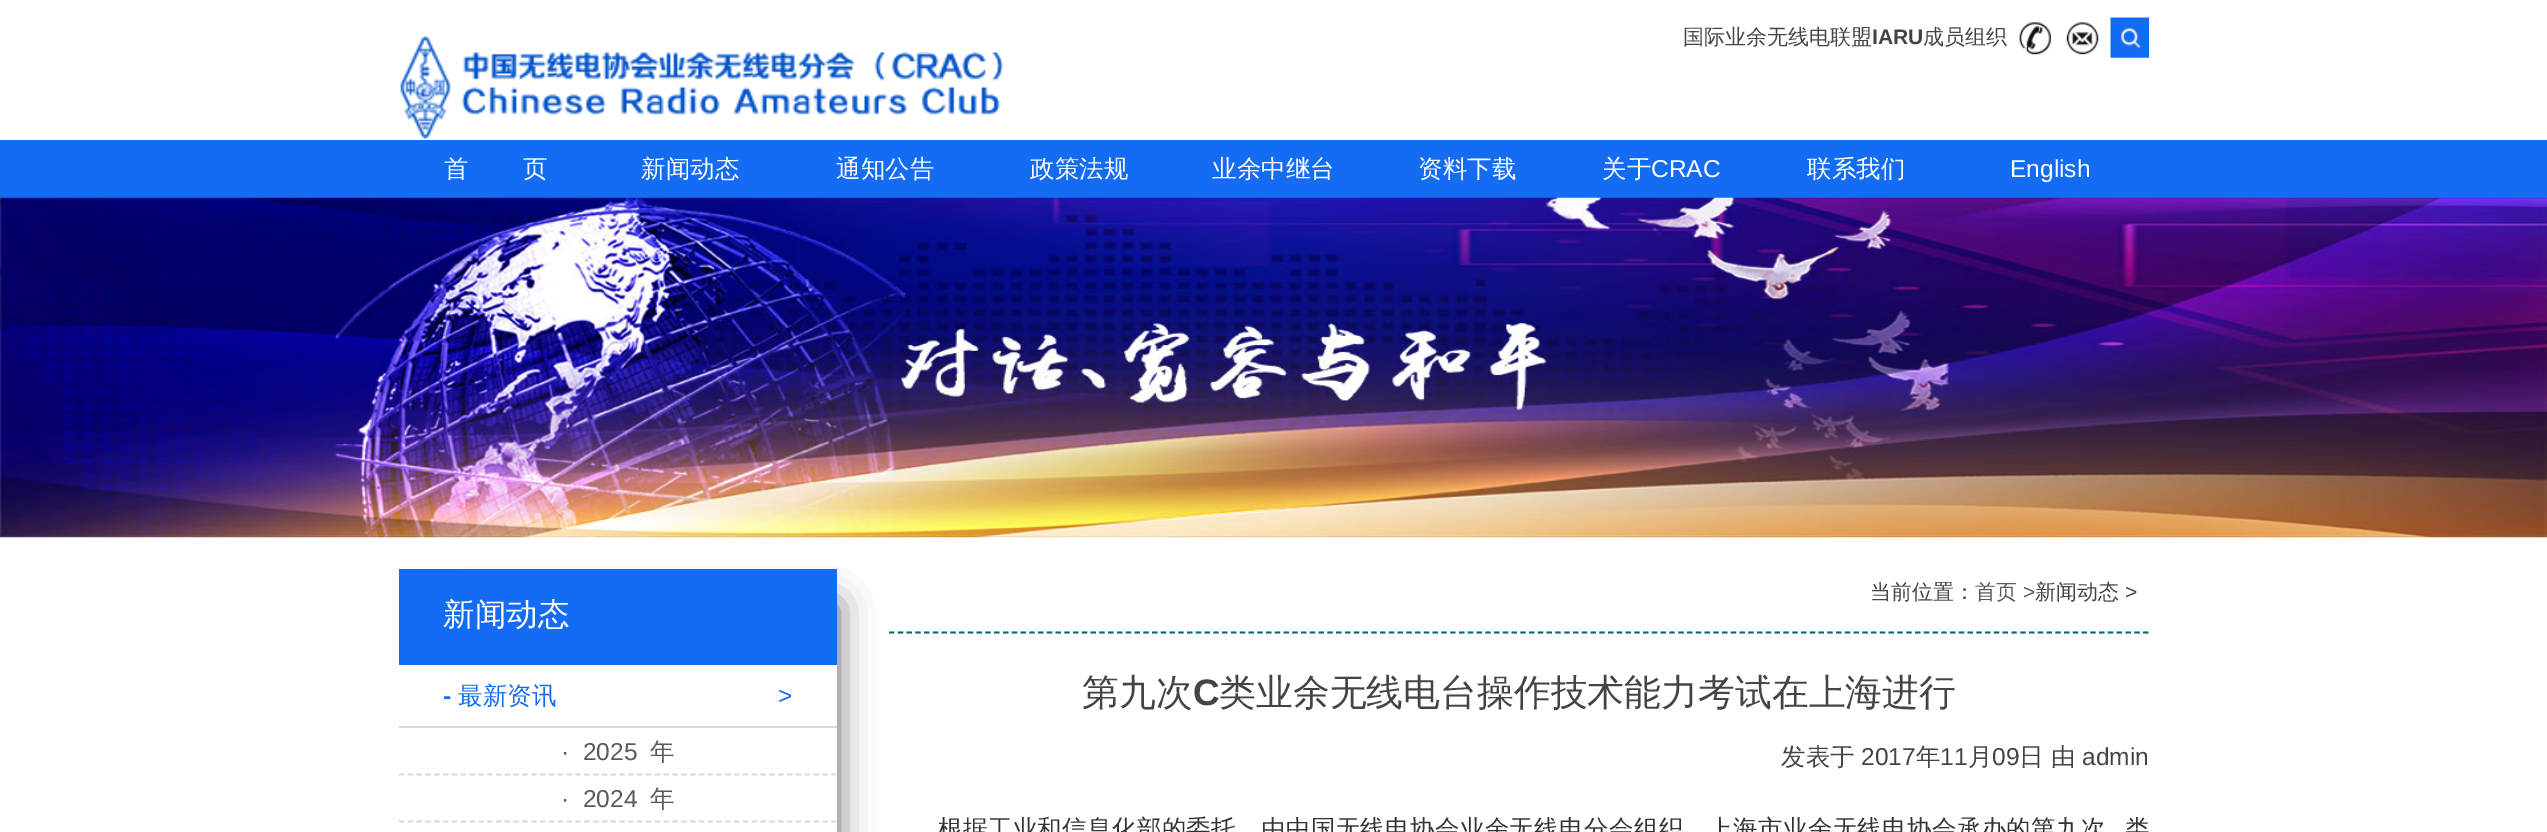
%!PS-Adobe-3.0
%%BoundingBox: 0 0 2547 832
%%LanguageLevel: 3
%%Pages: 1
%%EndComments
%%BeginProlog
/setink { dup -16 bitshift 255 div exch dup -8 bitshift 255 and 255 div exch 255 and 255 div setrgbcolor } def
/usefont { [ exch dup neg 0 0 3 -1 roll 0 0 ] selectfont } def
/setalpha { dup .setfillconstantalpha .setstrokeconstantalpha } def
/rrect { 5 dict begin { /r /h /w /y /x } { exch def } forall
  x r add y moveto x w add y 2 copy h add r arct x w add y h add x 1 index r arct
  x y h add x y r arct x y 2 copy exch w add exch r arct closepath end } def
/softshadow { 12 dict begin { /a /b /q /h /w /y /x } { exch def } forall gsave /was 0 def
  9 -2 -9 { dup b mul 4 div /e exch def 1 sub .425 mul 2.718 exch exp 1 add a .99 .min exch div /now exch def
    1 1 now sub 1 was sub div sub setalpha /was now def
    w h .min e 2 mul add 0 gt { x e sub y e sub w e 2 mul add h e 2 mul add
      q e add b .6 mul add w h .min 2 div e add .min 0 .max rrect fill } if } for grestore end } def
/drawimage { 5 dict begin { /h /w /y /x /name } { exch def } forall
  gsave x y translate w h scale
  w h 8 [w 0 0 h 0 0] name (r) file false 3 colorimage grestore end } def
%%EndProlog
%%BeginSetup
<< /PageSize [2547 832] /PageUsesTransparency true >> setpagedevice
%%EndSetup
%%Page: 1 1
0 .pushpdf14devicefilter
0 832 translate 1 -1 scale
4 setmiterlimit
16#FFFFFF setink
0 0 2547 832 rectfill
(img1.raw) 400 36 604 103 drawimage
/WenQuanYiZenHei-Medium 21 usefont
16#444444 setink
1683 44 moveto (国际业余无线电联盟) show
/LiberationSans-Bold 21 usefont
1872 44 moveto (IARU) show
/WenQuanYiZenHei-Medium 21 usefont
1923 44 moveto (成员组织) show
(img2.raw) 2019 22 32 33 drawimage
(img3.raw) 2066 22 33 33 drawimage
(img4.raw) 2110 17 39 41 drawimage
16#146CF3 setink
0 140 2547 58 rectfill
/WenQuanYiZenHei-Medium 24.5 usefont
16#FFFFFF setink
[
    [(首) 444 177]
    [(页) 523 177]
    [(新闻动态) 641 177]
    [(通知公告) 836 177]
    [(政策法规) 1030 177]
    [(业余中继台) 1212 177]
    [(资料下载) 1418 177]
    [(关于) 1602 177]
] { aload pop moveto show } forall
/LiberationSans-Regular 24.5 usefont
1651 177 moveto (CRAC) show
/WenQuanYiZenHei-Medium 24.5 usefont
1807 177 moveto (联系我们) show
/LiberationSans-Regular 24.5 usefont
2010 177 moveto (English) show
(img5.raw) 0 197 2547 341 drawimage
gsave
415 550 moveto 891 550 lineto 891 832 lineto 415 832 lineto closepath 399 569 moveto 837 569 lineto 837 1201 lineto 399 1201 lineto closepath eoclip newpath
16#5E5E5E setink
469 604 368 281 0 17.5 1 softshadow
grestore
16#146CF3 setink
399 569 438 96 rectfill
/WenQuanYiZenHei-Medium 31.5 usefont
16#FFFFFF setink
443 625 moveto (新闻动态) show
16#D9D9D9 setink
399 726 438 2 rectfill
/LiberationSans-Bold 24.5 usefont
16#146CF3 setink
443 704 moveto (-) show
/WenQuanYiZenHei-Medium 24.5 usefont
458 704 moveto (最新资讯) show
/LiberationSans-Regular 24.5 usefont
778 704 moveto (>) show
16#D9D9D9 setink
1.8 setlinewidth
[5.25 3.57] 0 setdash
399 774.5 moveto 836.5 774.5 lineto stroke
16#5A5A5A setink
561 760 moveto (·  2025) show
/WenQuanYiZenHei-Medium 24.5 usefont
650 760 moveto (年) show
16#D9D9D9 setink
399 821.5 moveto 836.5 821.5 lineto stroke
/LiberationSans-Regular 24.5 usefont
16#5A5A5A setink
561 807 moveto (·  2024) show
/WenQuanYiZenHei-Medium 24.5 usefont
650 807 moveto (年) show
/WenQuanYiZenHei-Medium 21 usefont
16#444444 setink
1870 599 moveto (当前位置：) show
16#5A5A5A setink
1975 599 moveto (首页) show
/LiberationSans-Regular 21 usefont
2023 599 moveto (>) show
/WenQuanYiZenHei-Medium 21 usefont
16#444444 setink
2035 599 moveto (新闻动态) show
/LiberationSans-Regular 21 usefont
2125 599 moveto (>) show
16#00686B setink
[5.25 3.52] 0 setdash
889 632.5 moveto 2149 632.5 lineto stroke
/WenQuanYiZenHei-Medium 36.85 usefont
16#444444 setink
1082 705 moveto (第九次) show
/LiberationSans-Bold 36.85 usefont
1193 705 moveto (C) show
/WenQuanYiZenHei-Medium 36.85 usefont
1219 705 moveto (类业余无线电台操作技术能力考试在上海进行) show
/WenQuanYiZenHei-Medium 24.5 usefont
1781 765 moveto (发表于) show
/LiberationSans-Regular 24.5 usefont
1861 765 moveto (2017) show
/WenQuanYiZenHei-Medium 24.5 usefont
1916 765 moveto (年) show
/LiberationSans-Regular 24.5 usefont
1940 765 moveto (11) show
/WenQuanYiZenHei-Medium 24.5 usefont
1968 765 moveto (月) show
/LiberationSans-Regular 24.5 usefont
1992 765 moveto (09) show
/WenQuanYiZenHei-Medium 24.5 usefont
2019 765 moveto (日 由) show
/LiberationSans-Regular 24.5 usefont
2082 765 moveto (admin) show
/WenQuanYiZenHei-Medium 24.5 usefont
16#333333 setink
938 837 moveto 0.35 0 (根据工业和信息化部的委托，由中国无线电协会业余无线电分会组织、上海市业余无线电协会承办的第九次) ashow
2125 837 moveto 0.35 0 (类) ashow
.poppdf14devicefilter showpage
%%EOF
